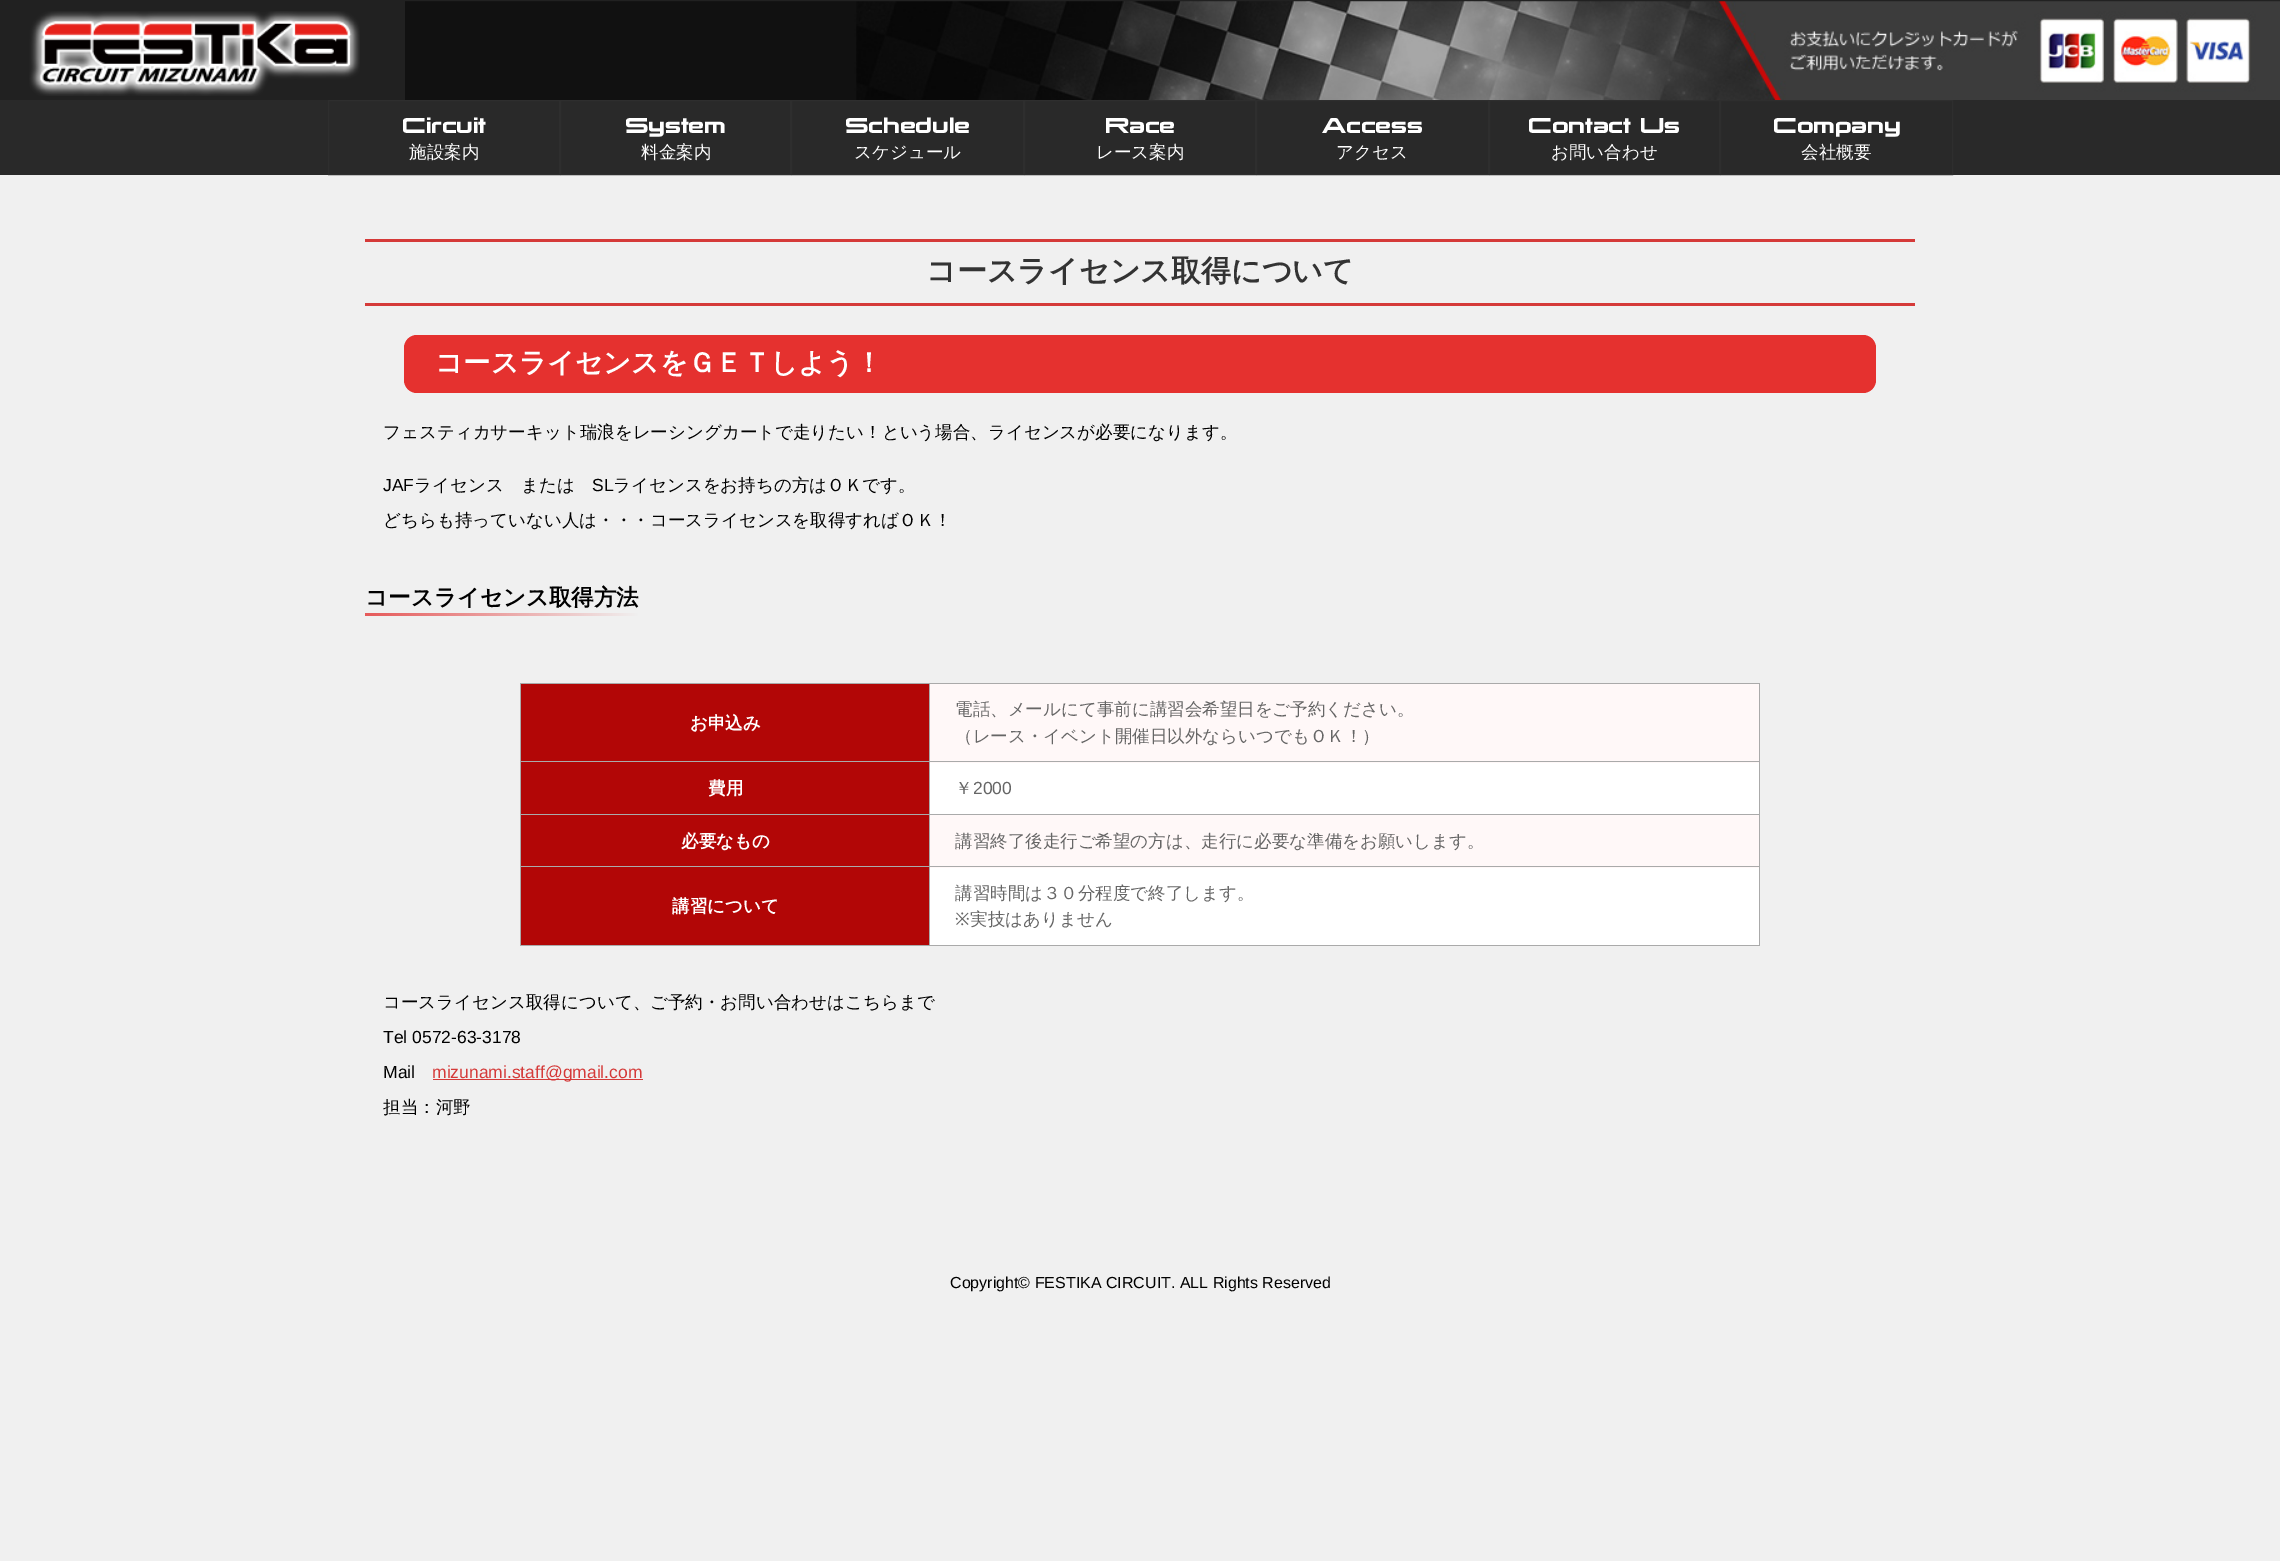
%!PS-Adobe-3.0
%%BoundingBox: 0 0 2280 1561
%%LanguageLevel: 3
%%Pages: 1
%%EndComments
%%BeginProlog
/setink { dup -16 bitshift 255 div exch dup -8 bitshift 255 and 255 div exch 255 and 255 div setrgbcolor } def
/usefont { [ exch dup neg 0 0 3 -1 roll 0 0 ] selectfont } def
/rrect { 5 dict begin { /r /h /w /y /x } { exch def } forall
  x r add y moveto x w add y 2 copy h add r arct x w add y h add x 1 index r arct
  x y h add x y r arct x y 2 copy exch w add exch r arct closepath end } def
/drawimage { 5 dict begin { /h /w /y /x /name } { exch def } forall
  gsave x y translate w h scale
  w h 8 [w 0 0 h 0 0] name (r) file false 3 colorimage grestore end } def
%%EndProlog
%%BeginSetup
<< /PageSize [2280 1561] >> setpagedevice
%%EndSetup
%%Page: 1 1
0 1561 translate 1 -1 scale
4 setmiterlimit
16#F0F0F0 setink
0 0 2280 1561 rectfill
16#212121 setink
0 0 2280 100 rectfill
(img1.raw) 405 1 1875 99 drawimage
(img2.raw) 29 11 331 85 drawimage
16#292929 setink
0 100 2280 75 rectfill
16#2E2E2E setink
328.5 100.5 231 74 rectstroke
/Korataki-Regular 18.75 usefont
16#FFFFFF setink
402 133 moveto (Circuit) show
/WenQuanYiZenHei-Medium 17.5 usefont
409 158 moveto (施設案内) show
16#2E2E2E setink
560.5 100.5 230 74 rectstroke
/Korataki-Regular 18.75 usefont
16#FFFFFF setink
625 133 moveto (System) show
/WenQuanYiZenHei-Medium 17.5 usefont
641 158 moveto (料金案内) show
16#2E2E2E setink
791.5 100.5 232 74 rectstroke
/Korataki-Regular 18.75 usefont
16#FFFFFF setink
845 133 moveto (Schedule) show
/WenQuanYiZenHei-Medium 17.5 usefont
854 158 moveto (スケジュール) show
16#2E2E2E setink
1024.5 100.5 231 74 rectstroke
/Korataki-Regular 18.75 usefont
16#FFFFFF setink
1105 133 moveto (Race) show
/WenQuanYiZenHei-Medium 17.5 usefont
1096 158 moveto (レース案内) show
16#2E2E2E setink
1256.5 100.5 232 74 rectstroke
/Korataki-Regular 18.75 usefont
16#FFFFFF setink
1322 133 moveto (Access) show
/WenQuanYiZenHei-Medium 17.5 usefont
1336 158 moveto (アクセス) show
16#2E2E2E setink
1489.5 100.5 230 74 rectstroke
/Korataki-Regular 18.75 usefont
16#FFFFFF setink
1528 133 moveto (Contact Us) show
/WenQuanYiZenHei-Medium 17.5 usefont
1551 158 moveto (お問い合わせ) show
16#2E2E2E setink
1720.5 100.5 232 74 rectstroke
/Korataki-Regular 18.75 usefont
16#FFFFFF setink
1773 133 moveto (Company) show
/WenQuanYiZenHei-Medium 17.5 usefont
1801 158 moveto (会社概要) show
16#D53A39 setink
365 239 1550 3 rectfill
365 303 1550 3 rectfill
/WenQuanYiZenHei-Bold 30 usefont
16#333333 setink
926 281 moveto (コースライセンス取得について) show
16#E5312F setink
404 335 1472 58 13 rrect fill
/WenQuanYiZenHei-Bold 27.5 usefont
16#FFFFFF setink
435 372 moveto (コースライセンスをＧＥＴしよう！) show
/WenQuanYiZenHei-Medium 17.5 usefont
16#000000 setink
383 438 moveto (フェスティカサーキット瑞浪をレーシングカートで走りたい！という場合、ライセンスが必要になります。) show
/LiberationSans-Regular 17.5 usefont
383 491 moveto (JAF) show
/WenQuanYiZenHei-Medium 17.5 usefont
414 491 moveto (ライセンス　または) show
/LiberationSans-Regular 17.5 usefont
592 491 moveto (SL) show
/WenQuanYiZenHei-Medium 17.5 usefont
613 491 moveto (ライセンスをお持ちの方はＯＫです。) show
383 526 moveto (どちらも持っていない人は・・・コースライセンスを取得すればＯＫ！) show
/WenQuanYiZenHei-Bold 22.5 usefont
365 605 moveto (コースライセンス取得方法) show
gsave 365 613 moveto 639 613 lineto 639 616 lineto 365 616 lineto closepath clip newpath
<< /ShadingType 2 /ColorSpace /DeviceRGB /Coords [365 614 639 614] /Extend [true true] /Function << /FunctionType 2 /Domain [0 1] /C0 [0.902 0.353 0.353] /C1 [0.941 0.941 0.941] /N 1 >> >> shfill grestore
[
    [520 683 1240 1 16#AAAAAA]
    [521 684 408 130 16#B20606]
    [930 684 829 79 16#FFF8F8]
    [520 761 1240 1 16#AAAAAA]
    [520 814 1240 1 16#AAAAAA]
    [521 815 408 130 16#B20606]
    [930 815 829 53 16#FFF8F8]
    [520 866 1240 1 16#AAAAAA]
    [1759 866 1 80 16#AAAAAA]
    [1759 814 1 54 16#AAAAAA]
    [1759 761 1 54 16#AAAAAA]
    [1759 683 1 80 16#AAAAAA]
    [520 945 1240 1 16#AAAAAA]
    [520 866 1 80 16#AAAAAA]
    [520 814 1 54 16#AAAAAA]
    [520 761 1 54 16#AAAAAA]
    [520 683 1 80 16#AAAAAA]
] { aload pop setink rectfill } forall
/WenQuanYiZenHei-Bold 17.5 usefont
16#FFFFFF setink
690 729 moveto (お申込み) show
/WenQuanYiZenHei-Medium 17.5 usefont
16#666666 setink
955 715 moveto (電話、メールにて事前に講習会希望日をご予約ください。) show
955 742 moveto (（レース・イベント開催日以外ならいつでもＯＫ！）) show
/WenQuanYiZenHei-Bold 17.5 usefont
16#FFFFFF setink
708 794 moveto (費用) show
930 763 829 51 rectfill
/WenQuanYiZenHei-Medium 17.5 usefont
16#666666 setink
955 794 moveto (￥) show
/LiberationSans-Regular 17.5 usefont
973 794 moveto (2000) show
/WenQuanYiZenHei-Bold 17.5 usefont
16#FFFFFF setink
681 847 moveto (必要なもの) show
/WenQuanYiZenHei-Medium 17.5 usefont
16#666666 setink
955 847 moveto (講習終了後走行ご希望の方は、走行に必要な準備をお願いします。) show
/WenQuanYiZenHei-Bold 17.5 usefont
16#FFFFFF setink
672 912 moveto (講習について) show
930 868 829 77 rectfill
16#AAAAAA setink
929 683 1 263 rectfill
/WenQuanYiZenHei-Medium 17.5 usefont
16#666666 setink
955 899 moveto (講習時間は３０分程度で終了します。) show
/NotoSans-Regular 17.5 usefont
955 925 moveto (※) show
/WenQuanYiZenHei-Medium 17.5 usefont
970 925 moveto (実技はありません) show
16#000000 setink
383 1008 moveto (コースライセンス取得について、ご予約・お問い合わせはこちらまで) show
/LiberationSans-Regular 17.5 usefont
383 1043 moveto (Tel 0572-63-3178) show
383 1078 moveto (Mail) show
16#D53A39 setink
433 1079 210 1 rectfill
432 1078 moveto (mizunami.staff@gmail.com) show
/WenQuanYiZenHei-Medium 17.5 usefont
16#000000 setink
383 1113 moveto (担当：河野) show
/LiberationSans-Regular 16 usefont
950 1288 moveto (Copyright© FESTIKA CIRCUIT. ALL Rights Reserved) show
showpage
%%EOF
